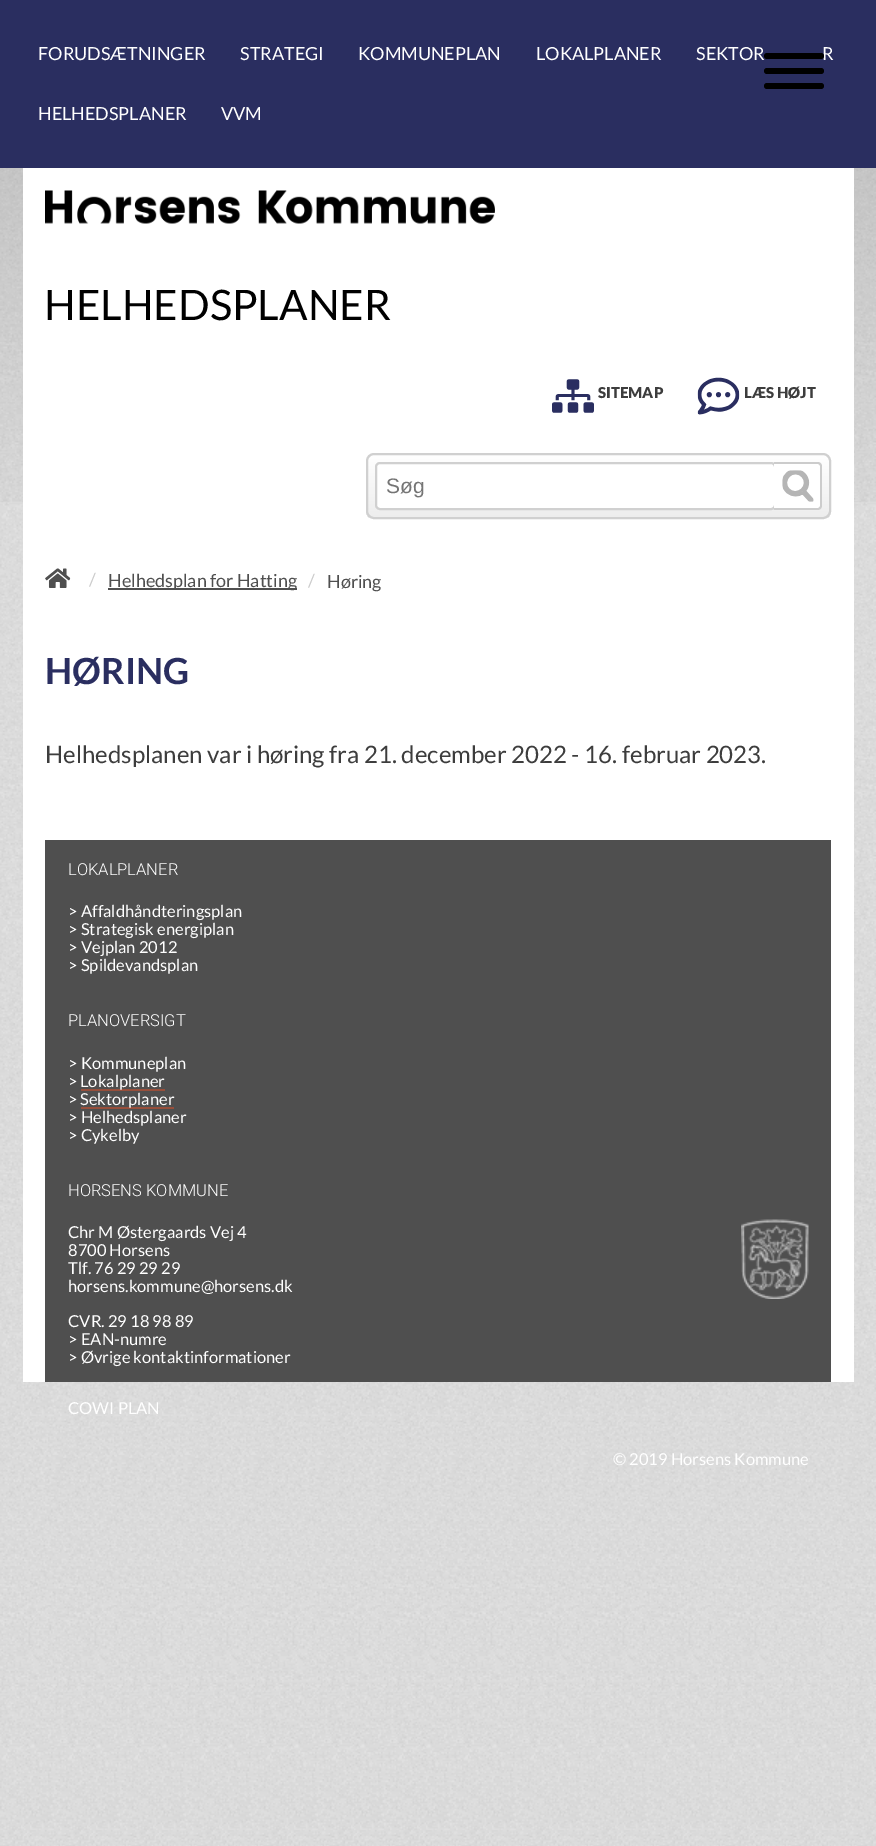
%!PS-Adobe-3.0
%%BoundingBox: 0 0 876 1846
%%LanguageLevel: 3
%%Pages: 1
%%EndComments
%%BeginProlog
/setink { dup -16 bitshift 255 div exch dup -8 bitshift 255 and 255 div exch 255 and 255 div setrgbcolor } def
/usefont { [ exch dup neg 0 0 3 -1 roll 0 0 ] selectfont } def
/rrect { 5 dict begin { /r /h /w /y /x } { exch def } forall
  x r add y moveto x w add y 2 copy h add r arct x w add y h add x 1 index r arct
  x y h add x y r arct x y 2 copy exch w add exch r arct closepath end } def
/drawimage { 5 dict begin { /h /w /y /x /name } { exch def } forall
  gsave x y translate w h scale
  w h 8 [w 0 0 h 0 0] name (r) file false 3 colorimage grestore end } def
%%EndProlog
%%BeginSetup
<< /PageSize [876 1846] >> setpagedevice
%%EndSetup
%%Page: 1 1
0 1846 translate 1 -1 scale
4 setmiterlimit
16#FFFFFF setink
0 0 876 1846 rectfill
(img1.raw) 0 168 876 1678 drawimage
(img2.raw) 0 168 876 334 drawimage
16#2A2E60 setink
0 0 876 168 rectfill
/Lato-Regular 18 usefont
16#FFFFFF setink
[
    [(FORUDSÆTNINGER) 38 60]
    [(STRATEGI) 240 60]
    [(KOMMUNEPLAN) 358 60]
    [(LOKALPLANER) 536 60]
    [(SEKTOR) 696 60]
    [(R) 822 60]
    [(HELHEDSPLANER) 38 120]
    [(VVM) 221 120]
] { aload pop moveto show } forall
23 168 831 627 rectfill
(img3.raw) 45 190 450 34 drawimage
/Lato-Regular 42 usefont
16#000000 setink
44 320 moveto (HELHEDSPLANER) show
(img4.raw) 552 379 42 34 drawimage
/Lato-Black 15 usefont
16#3D3D3D setink
598 398 moveto (SITEMAP) show
(img5.raw) 697 377 43 38 drawimage
744 398 moveto (LÆS HØJT) show
gsave
366 453 465 66 8 rrect clip newpath
gsave 366 455 moveto 831 455 lineto 831 518 lineto 366 518 lineto closepath clip newpath
<< /ShadingType 2 /ColorSpace /DeviceRGB /Coords [599 455 599 518] /Extend [true true] /Function << /FunctionType 2 /Domain [0 1] /C0 [1 1 1] /C1 [0.929 0.929 0.929] /N 1 >> >> shfill grestore
grestore
16#D0D0D0 setink
2 setlinewidth
367 454 463 64 7 rrect stroke
16#FFFFFF setink
376 463 399 46 4 rrect gsave fill grestore
16#D0D0D0 setink
stroke
/LiberationSans-Regular 21 usefont
16#757575 setink
386 493 moveto (Søg) show
16#FFFFFF setink
774 462 moveto 817 462 lineto 820 462 822 464 822 467 curveto 822 505 lineto 822 508 820 510 817 510 curveto 774 510 lineto closepath fill
16#CCCCCC setink
774 462 moveto 818 462 lineto 820 462 822 464 822 466 curveto 822 506 lineto 822 508 820 510 818 510 curveto 774 510 lineto closepath 774 464 moveto 818 464 lineto 819 464 820 465 820 466 curveto 820 506 lineto 820 507 819 508 818 508 curveto 774 508 lineto closepath eofill
(img6.raw) 782 470 32 32 drawimage
(img7.raw) 45 568 26 20 drawimage
/Lato-Regular 18 usefont
89 586 moveto (/) show
16#4F4F4F setink
108 588 189 2 rectfill
108 587 moveto (Helhedsplan for Hatting) show
16#CCCCCC setink
308 587 moveto (/) show
16#4F4F4F setink
327 588 moveto (Høring) show
16#000000 setink
764 53 60 6 3 rrect fill
764 68 60 6 3 rrect fill
764 83 60 6 3 rrect fill
/Lato-Bold 36 usefont
16#2A2E60 setink
45 684 moveto (HØRING) show
/Lato-Regular 24 usefont
16#3D3D3D setink
45 763 moveto (Helhedsplanen var i høring fra 21. december 2022 - 16. februar 2023.) show
[
    [45 795 786 45 16#FFFFFF]
    [831 795 23 587 16#FFFFFF]
    [23 795 22 587 16#FFFFFF]
    [45 840 786 542 16#4F4F4F]
] { aload pop setink rectfill } forall
/Roboto-Light 16.5 usefont
16#FFFFFF setink
68 875 moveto (LOKALPLANER) show
/Lato-Regular 16.5 usefont
[
    [(> Affaldhåndteringsplan) 68 917]
    [(> Strategisk energiplan) 68 935]
    [(> Vejplan 2012) 68 953]
    [(> Spildevandsplan) 68 971]
] { aload pop moveto show } forall
/Roboto-Light 16.5 usefont
68 1026 moveto (PLANOVERSIGT) show
/Lato-Regular 16.5 usefont
68 1069 moveto (> Kommuneplan) show
68 1087 moveto (>) show
16#974F3B setink
81 1089 84 2 rectfill
16#FFFFFF setink
80 1087 moveto (Lokalplaner) show
68 1105 moveto (>) show
16#974F3B setink
81 1107 93 2 rectfill
16#FFFFFF setink
[
    [(Sektorplaner) 80 1105]
    [(> Helhedsplaner) 68 1123]
    [(> Cykelby) 68 1141]
] { aload pop moveto show } forall
(img8.raw) 741 1219 68 80 drawimage
/Roboto-Light 16.5 usefont
68 1196 moveto (HORSENS KOMMUNE) show
/Lato-Regular 16.5 usefont
[
    [(Chr M Østergaards Vej 4) 68 1238]
    [(8700 Horsens) 68 1256]
    [(Tlf. 76 29 29 29) 68 1274]
    [(horsens.kommune@horsens.dk) 68 1292]
    [(CVR. 29 18 98 89) 68 1327]
    [(> EAN-numre) 68 1345]
    [(> Øvrige kontaktinformationer) 68 1363]
    [(COWI PLAN) 68 1414]
    [(© 2019 Horsens Kommune) 613 1465]
] { aload pop moveto show } forall
showpage
%%EOF
